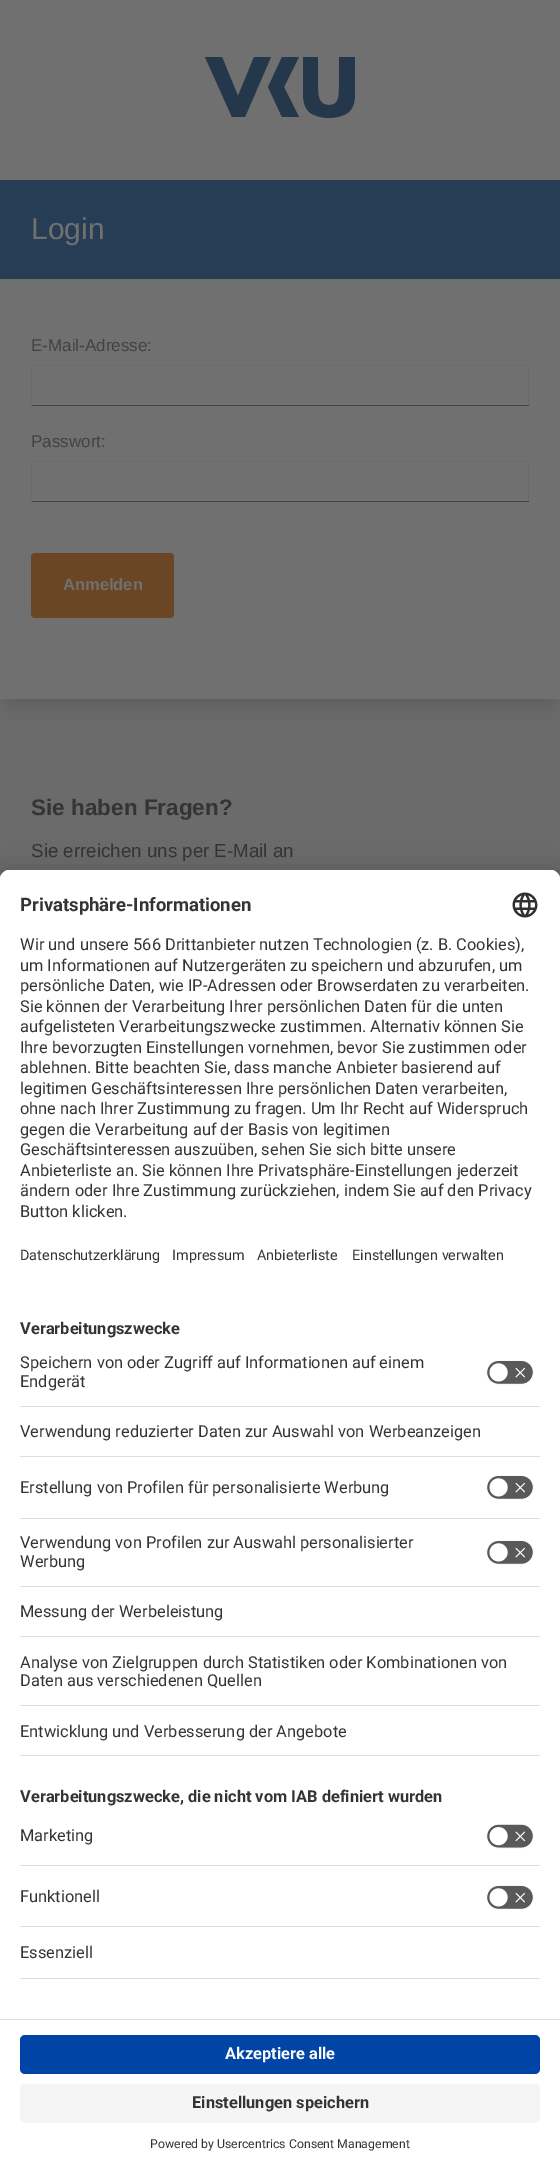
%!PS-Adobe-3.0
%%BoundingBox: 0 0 560 2171
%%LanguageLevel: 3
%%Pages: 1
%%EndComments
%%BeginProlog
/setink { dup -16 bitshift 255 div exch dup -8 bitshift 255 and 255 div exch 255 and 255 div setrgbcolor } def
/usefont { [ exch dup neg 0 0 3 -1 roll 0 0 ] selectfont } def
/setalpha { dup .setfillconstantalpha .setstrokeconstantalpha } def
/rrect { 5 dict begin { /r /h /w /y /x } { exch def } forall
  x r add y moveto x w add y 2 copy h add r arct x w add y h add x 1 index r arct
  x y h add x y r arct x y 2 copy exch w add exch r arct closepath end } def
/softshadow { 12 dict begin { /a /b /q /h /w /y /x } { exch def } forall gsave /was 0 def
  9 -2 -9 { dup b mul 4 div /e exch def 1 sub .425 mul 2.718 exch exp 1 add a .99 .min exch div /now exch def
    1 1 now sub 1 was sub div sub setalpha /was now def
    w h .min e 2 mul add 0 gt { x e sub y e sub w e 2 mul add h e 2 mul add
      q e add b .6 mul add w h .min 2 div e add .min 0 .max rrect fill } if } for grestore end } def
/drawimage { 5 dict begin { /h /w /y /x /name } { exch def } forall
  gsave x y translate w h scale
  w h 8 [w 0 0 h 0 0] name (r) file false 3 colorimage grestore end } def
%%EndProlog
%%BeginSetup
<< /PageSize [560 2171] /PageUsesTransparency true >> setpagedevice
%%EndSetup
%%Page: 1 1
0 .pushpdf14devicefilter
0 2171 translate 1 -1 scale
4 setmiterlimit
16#6B6B6B setink
0 0 560 2171 rectfill
16#242424 setink
9 23 542 681 0 9.5 0.2 softshadow
16#707070 setink
0 0 560 699 rectfill
16#24374B setink
205 57 moveto 232 117 lineto 245 117 lineto 271 57 lineto 254 57 lineto 238 96 lineto 222 57 lineto closepath 339 57 moveto 339 88 lineto 339 96 339 105 329 105 curveto 319 105 318 96 318 88 curveto 318 57 lineto 303 57 lineto 303 90 lineto 303 98 303 106 309 112 curveto 314 116 322 118 329 118 curveto 336 118 344 116 349 112 curveto 355 106 355 98 355 90 curveto 355 57 lineto closepath 282 117 moveto 299 117 lineto 284 87 lineto 299 57 lineto 282 57 lineto 268 87 lineto closepath eofill
16#273D55 setink
0 180 560 99 rectfill
/LiberationSans-Regular 30 usefont
16#707070 setink
31 239 moveto (Login) show
/LiberationSans-Regular 17 usefont
16#424242 setink
31 351 moveto (E-Mail-Adresse:) show
[
    [31 365 498 1 16#6B6B6B]
    [528 365 1 41 16#6B6B6B]
    [31 405 498 1 16#424242]
    [31 365 1 41 16#6B6B6B]
] { aload pop setink rectfill } forall
16#424242 setink
31 447 moveto (Passwort:) show
[
    [31 461 498 1 16#6B6B6B]
    [528 461 1 42 16#6B6B6B]
    [31 501 498 1 16#424242]
    [31 461 1 42 16#6B6B6B]
] { aload pop setink rectfill } forall
16#6B4625 setink
31 553 143 65 4 rrect fill
/LiberationSans-Bold 16.5 usefont
16#707070 setink
63 590 moveto (Anmelden) show
/LiberationSans-Bold 22.5 usefont
16#343434 setink
31 815 moveto (Sie haben Fragen?) show
/LiberationSans-Regular 18.75 usefont
31 857 moveto (Sie erreichen uns per E-Mail an) show
16#000000 setink
0 895 560 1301 10 17.5 0.3 softshadow
0 876 560 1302 10 16 0.22 softshadow
16#FFFFFF setink
10 870 moveto 550 870 lineto 555.5 870 560 874.5 560 880 curveto 560 2171 lineto 0 2171 lineto 0 880 lineto 0 874.5 4.5 870 10 870 curveto closepath fill
10 870 moveto 550 870 lineto 555.5 870 560 874.5 560 880 curveto 560 2019 lineto 0 2019 lineto 0 880 lineto 0 874.5 4.5 870 10 870 curveto closepath fill
10 870 moveto 550 870 lineto 555.5 870 560 874.5 560 880 curveto 560 1304 lineto 0 1304 lineto 0 880 lineto 0 874.5 4.5 870 10 870 curveto closepath fill
/Roboto-Bold 18.5 usefont
16#343434 setink
20 911 moveto (Privatsphäre-Informationen) show
(img1.raw) 512 892 26 26 drawimage
/Roboto-Regular 16.4 usefont
[
    [(Wir und unsere 566 Drittanbieter nutzen Technologien \(z. B. Cookies\),) 20 950]
    [(um Informationen auf Nutzergeräten zu speichern und abzurufen, um) 20 971]
    [(persönliche Daten, wie IP-Adressen oder Browserdaten zu verarbeiten.) 20 991]
    [(Sie können der Verarbeitung Ihrer persönlichen Daten für die unten) 20 1012]
    [(aufgelisteten Verarbeitungszwecke zustimmen. Alternativ können Sie) 20 1032]
    [(Ihre bevorzugten Einstellungen vornehmen, bevor Sie zustimmen oder) 20 1053]
    [(ablehnen. Bitte beachten Sie, dass manche Anbieter basierend auf) 20 1073]
    [(legitimen Geschäftsinteressen Ihre persönlichen Daten verarbeiten,) 20 1094]
    [(ohne nach Ihrer Zustimmung zu fragen. Um Ihr Recht auf Widerspruch) 20 1114]
    [(gegen die Verarbeitung auf der Basis von legitimen) 20 1135]
    [(Geschäftsinteressen auszuüben, sehen Sie sich bitte unsere) 20 1155]
    [(Anbieterliste an. Sie können Ihre Privatsphäre-Einstellungen jederzeit) 20 1176]
    [(ändern oder Ihre Zustimmung zurückziehen, indem Sie auf den Privacy) 20 1196]
    [(Button klicken.) 20 1217]
] { aload pop moveto show } forall
/Roboto-Regular 14.4 usefont
[
    [(Datenschutzerklärung) 20 1260]
    [(Impressum) 172 1260]
    [(Anbieterliste) 257 1260]
    [(Einstellungen verwalten) 352 1260]
] { aload pop moveto show } forall
/Roboto-Bold 16.4 usefont
20 1334 moveto (Verarbeitungszwecke) show
16#DDDDDD setink
20 1406 520 1 rectfill
/Roboto-Regular 16.4 usefont
16#343434 setink
20 1368 moveto (Speichern von oder Zugriff auf Informationen auf einem) show
20 1387 moveto (Endgerät) show
(img2.raw) 486 1360 48 25 drawimage
16#DDDDDD setink
20 1456 520 1 rectfill
16#343434 setink
20 1437 moveto (Verwendung reduzierter Daten zur Auswahl von Werbeanzeigen) show
16#DDDDDD setink
20 1518 520 1 rectfill
16#343434 setink
20 1493 moveto (Erstellung von Profilen für personalisierte Werbung) show
(img2.raw) 486 1475 48 25 drawimage
16#DDDDDD setink
20 1586 520 1 rectfill
16#343434 setink
20 1548 moveto (Verwendung von Profilen zur Auswahl personalisierter) show
20 1567 moveto (Werbung) show
(img2.raw) 486 1540 48 25 drawimage
16#DDDDDD setink
20 1636 520 1 rectfill
16#343434 setink
20 1617 moveto (Messung der Werbeleistung) show
16#DDDDDD setink
20 1705 520 1 rectfill
16#343434 setink
20 1668 moveto (Analyse von Zielgruppen durch Statistiken oder Kombinationen von) show
20 1686 moveto (Daten aus verschiedenen Quellen) show
16#DDDDDD setink
20 1755 520 1 rectfill
16#343434 setink
20 1737 moveto (Entwicklung und Verbesserung der Angebote) show
/Roboto-Bold 16.4 usefont
20 1802 moveto (Verarbeitungszwecke, die nicht vom IAB definiert wurden) show
16#DDDDDD setink
20 1865 520 1 rectfill
/Roboto-Regular 16.4 usefont
16#343434 setink
20 1841 moveto (Marketing) show
(img3.raw) 486 1824 48 25 drawimage
16#DDDDDD setink
20 1926 520 1 rectfill
16#343434 setink
20 1902 moveto (Funktionell) show
(img2.raw) 486 1885 48 25 drawimage
16#DDDDDD setink
20 1978 520 1 rectfill
16#343434 setink
20 1958 moveto (Essenziell) show
16#DDDDDD setink
0 2019 560 1 rectfill
16#0045A5 setink
20 2035 520 39 5 rrect fill
/Roboto-Bold 16.4 usefont
16#FAFAFA setink
225 2059 moveto (Akzeptiere alle) show
16#F5F5F5 setink
20 2084 520 39 5 rrect fill
16#343434 setink
192 2108 moveto (Einstellungen speichern) show
/Roboto-Regular 12.3 usefont
150 2148 moveto (Powered by Usercentrics Consent Management) show
.poppdf14devicefilter showpage
%%EOF
